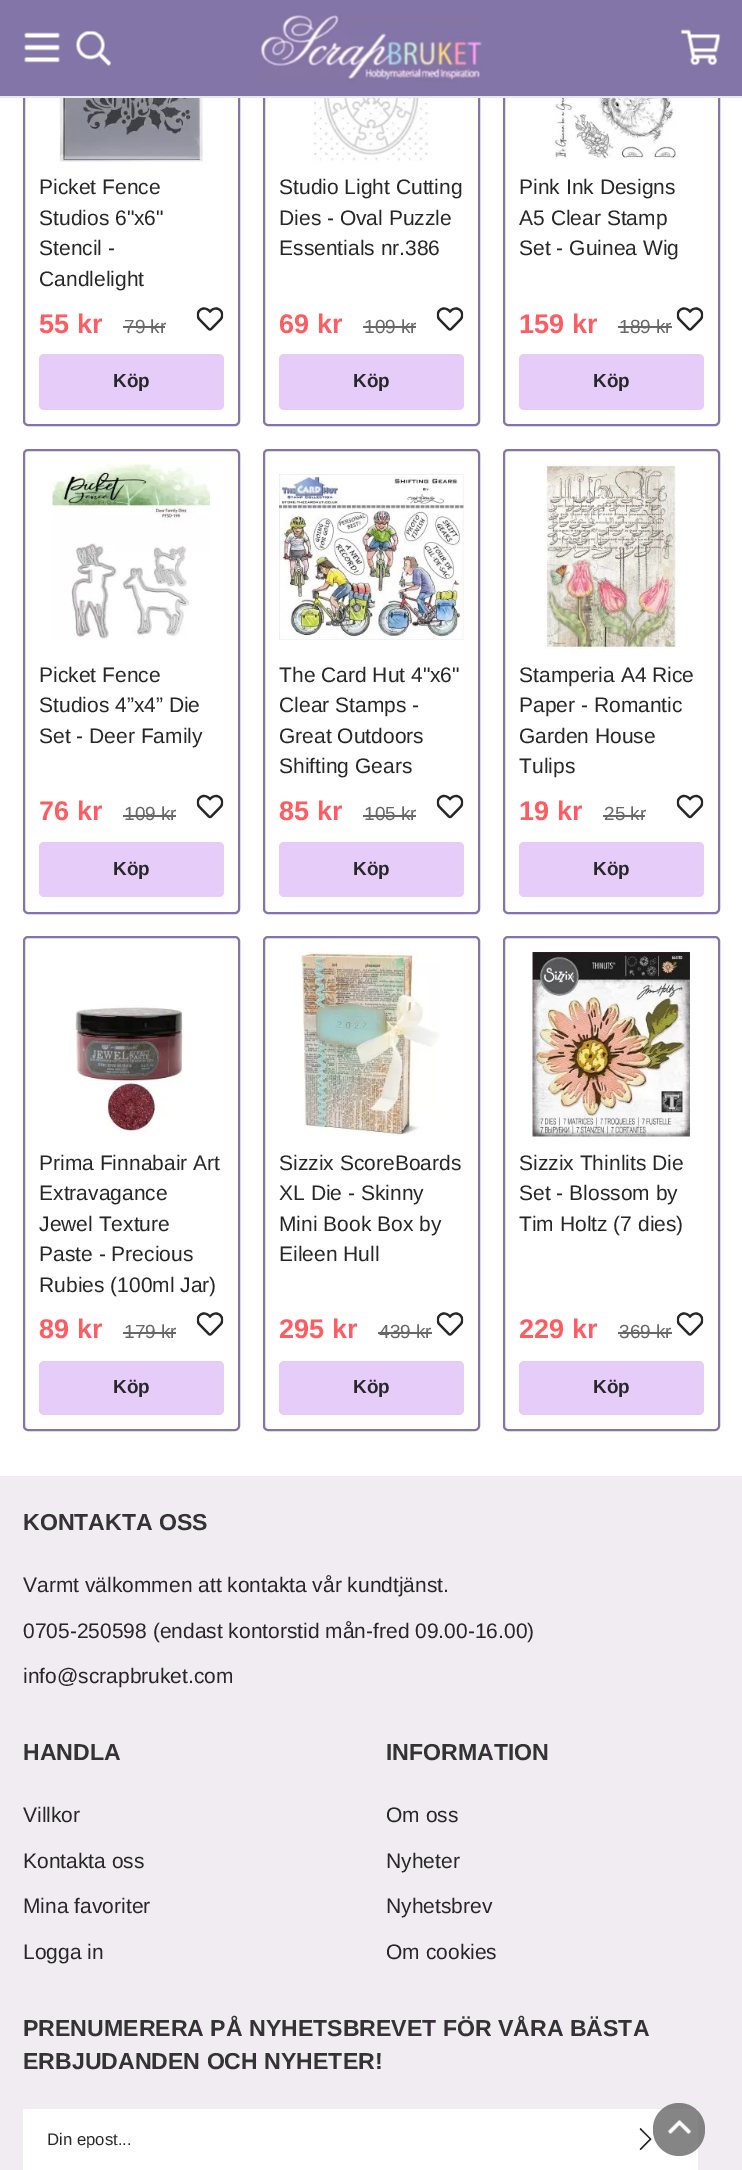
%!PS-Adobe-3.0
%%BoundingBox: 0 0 742 2170
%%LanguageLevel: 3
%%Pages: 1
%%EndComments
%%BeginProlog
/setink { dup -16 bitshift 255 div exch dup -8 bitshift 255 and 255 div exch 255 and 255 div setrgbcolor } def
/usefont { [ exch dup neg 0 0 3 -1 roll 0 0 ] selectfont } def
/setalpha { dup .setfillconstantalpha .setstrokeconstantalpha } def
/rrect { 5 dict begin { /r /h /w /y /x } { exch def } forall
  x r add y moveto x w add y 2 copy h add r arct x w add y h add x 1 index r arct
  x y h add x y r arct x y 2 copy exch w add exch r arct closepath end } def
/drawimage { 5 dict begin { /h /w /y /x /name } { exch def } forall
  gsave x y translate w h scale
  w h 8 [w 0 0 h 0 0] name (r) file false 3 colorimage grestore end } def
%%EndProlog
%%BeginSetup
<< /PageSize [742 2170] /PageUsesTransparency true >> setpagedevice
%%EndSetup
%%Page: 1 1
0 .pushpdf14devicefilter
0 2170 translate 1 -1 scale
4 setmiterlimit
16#FFFFFF setink
0 0 742 2170 rectfill
16#8375A8 setink
2 setlinewidth
24 -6 215 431 4 rrect stroke
264 -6 215 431 4 rrect stroke
504 -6 215 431 4 rrect stroke
0 0 742 96 rectfill
16#E9E9E9 setink
0 96 742 2 rectfill
(img1.raw) 24 32 36 31 drawimage
(img2.raw) 76 30 36 36 drawimage
(img3.raw) 260 15 222 69 drawimage
(img4.raw) 680 29 41 37 drawimage
(img5.raw) 59 98 144 64 drawimage
/LiberationSans-Regular 21 usefont
16#272727 setink
[
    [(Picket Fence) 39 194]
    [(Studios 6"x6") 39 225]
    [(Stencil -) 39 255]
    [(Candlelight) 39 286]
] { aload pop moveto show } forall
/LiberationSans-Bold 27 usefont
16#FC5D62 setink
39 333 moveto (55 kr) show
/LiberationSans-Regular 19 usefont
16#676767 setink
124 333 moveto (79 kr) show
123 326 42 2 rectfill
(img6.raw) 196 307 28 24 drawimage
16#E6CCF8 setink
39 354 185 56 5 rrect fill
/LiberationSans-Bold 19 usefont
16#272727 setink
113 387 moveto (Köp) show
(img7.raw) 313 98 116 64 drawimage
/LiberationSans-Regular 21 usefont
[
    [(Studio Light Cutting) 279 194]
    [(Dies - Oval Puzzle) 279 225]
    [(Essentials nr.386) 279 255]
] { aload pop moveto show } forall
/LiberationSans-Bold 27 usefont
16#FC5D62 setink
279 333 moveto (69 kr) show
/LiberationSans-Regular 19 usefont
16#676767 setink
364 333 moveto (109 kr) show
363 326 53 2 rectfill
(img6.raw) 436 307 28 24 drawimage
16#E6CCF8 setink
279 354 185 56 5 rrect fill
/LiberationSans-Bold 19 usefont
16#272727 setink
353 387 moveto (Köp) show
(img8.raw) 553 98 123 61 drawimage
/LiberationSans-Regular 21 usefont
[
    [(Pink Ink Designs) 519 194]
    [(A5 Clear Stamp) 519 225]
    [(Set - Guinea Wig) 519 255]
] { aload pop moveto show } forall
/LiberationSans-Bold 27 usefont
16#FC5D62 setink
519 333 moveto (159 kr) show
/LiberationSans-Regular 19 usefont
16#676767 setink
619 333 moveto (189 kr) show
618 326 54 2 rectfill
(img6.raw) 676 307 28 24 drawimage
16#E6CCF8 setink
519 354 185 56 5 rrect fill
/LiberationSans-Bold 19 usefont
16#272727 setink
593 387 moveto (Köp) show
16#8375A8 setink
24 450 215 463 4 rrect stroke
(img9.raw) 52 464 158 176 drawimage
/LiberationSans-Regular 21 usefont
16#272727 setink
[
    [(Picket Fence) 39 682]
    [(Studios 4”x4” Die) 39 712]
    [(Set - Deer Family) 39 743]
] { aload pop moveto show } forall
/LiberationSans-Bold 27 usefont
16#FC5D62 setink
39 820 moveto (76 kr) show
/LiberationSans-Regular 19 usefont
16#676767 setink
124 820 moveto (109 kr) show
123 815 53 2 rectfill
(img10.raw) 196 794 28 25 drawimage
16#E6CCF8 setink
39 842 185 55 5 rrect fill
/LiberationSans-Bold 19 usefont
16#272727 setink
113 875 moveto (Köp) show
16#8375A8 setink
264 450 215 463 4 rrect stroke
(img11.raw) 279 474 185 166 drawimage
/LiberationSans-Regular 21 usefont
16#272727 setink
[
    [(The Card Hut 4"x6") 279 682]
    [(Clear Stamps -) 279 712]
    [(Great Outdoors) 279 743]
    [(Shifting Gears) 279 773]
] { aload pop moveto show } forall
/LiberationSans-Bold 27 usefont
16#FC5D62 setink
279 820 moveto (85 kr) show
/LiberationSans-Regular 19 usefont
16#676767 setink
364 820 moveto (105 kr) show
363 815 53 2 rectfill
(img10.raw) 436 794 28 25 drawimage
16#E6CCF8 setink
279 842 185 55 5 rrect fill
/LiberationSans-Bold 19 usefont
16#272727 setink
353 875 moveto (Köp) show
16#8375A8 setink
504 450 215 463 4 rrect stroke
(img12.raw) 544 464 133 185 drawimage
/LiberationSans-Regular 21 usefont
16#272727 setink
[
    [(Stamperia A4 Rice) 519 682]
    [(Paper - Romantic) 519 712]
    [(Garden House) 519 743]
    [(Tulips) 519 773]
] { aload pop moveto show } forall
/LiberationSans-Bold 27 usefont
16#FC5D62 setink
519 820 moveto (19 kr) show
/LiberationSans-Regular 19 usefont
16#676767 setink
604 820 moveto (25 kr) show
603 815 42 2 rectfill
(img10.raw) 676 794 28 25 drawimage
16#E6CCF8 setink
519 842 185 55 5 rrect fill
/LiberationSans-Bold 19 usefont
16#272727 setink
593 875 moveto (Köp) show
16#8375A8 setink
24 937 215 493 4 rrect stroke
(img13.raw) 75 1005 109 129 drawimage
/LiberationSans-Regular 21 usefont
16#272727 setink
[
    [(Prima Finnabair Art) 39 1170]
    [(Extravagance) 39 1200]
    [(Jewel Texture) 39 1231]
    [(Paste - Precious) 39 1261]
    [(Rubies \(100ml Jar\)) 39 1292]
] { aload pop moveto show } forall
/LiberationSans-Bold 27 usefont
16#FC5D62 setink
39 1338 moveto (89 kr) show
/LiberationSans-Regular 19 usefont
16#676767 setink
124 1338 moveto (179 kr) show
123 1332 53 2 rectfill
(img14.raw) 196 1312 28 24 drawimage
16#E6CCF8 setink
39 1361 185 54 5 rrect fill
/LiberationSans-Bold 19 usefont
16#272727 setink
113 1393 moveto (Köp) show
16#8375A8 setink
264 937 215 493 4 rrect stroke
(img15.raw) 298 952 142 184 drawimage
/LiberationSans-Regular 21 usefont
16#272727 setink
[
    [(Sizzix ScoreBoards) 279 1170]
    [(XL Die - Skinny) 279 1200]
    [(Mini Book Box by) 279 1231]
    [(Eileen Hull) 279 1261]
] { aload pop moveto show } forall
/LiberationSans-Bold 27 usefont
16#FC5D62 setink
279 1338 moveto (295 kr) show
/LiberationSans-Regular 19 usefont
16#676767 setink
379 1338 moveto (439 kr) show
378 1332 54 2 rectfill
(img14.raw) 436 1312 28 24 drawimage
16#E6CCF8 setink
279 1361 185 54 5 rrect fill
/LiberationSans-Bold 19 usefont
16#272727 setink
353 1393 moveto (Köp) show
16#8375A8 setink
504 937 215 493 4 rrect stroke
(img16.raw) 532 952 158 185 drawimage
/LiberationSans-Regular 21 usefont
16#272727 setink
[
    [(Sizzix Thinlits Die) 519 1170]
    [(Set - Blossom by) 519 1200]
    [(Tim Holtz \(7 dies\)) 519 1231]
] { aload pop moveto show } forall
/LiberationSans-Bold 27 usefont
16#FC5D62 setink
519 1338 moveto (229 kr) show
/LiberationSans-Regular 19 usefont
16#676767 setink
619 1338 moveto (369 kr) show
618 1332 54 2 rectfill
(img14.raw) 676 1312 28 24 drawimage
16#E6CCF8 setink
519 1361 185 54 5 rrect fill
/LiberationSans-Bold 19 usefont
16#272727 setink
593 1393 moveto (Köp) show
16#F1EBF2 setink
0 1476 742 694 rectfill
/LiberationSans-Bold 23.1 usefont
16#333333 setink
23 1530 moveto (KONTAKTA OSS) show
/LiberationSans-Regular 21 usefont
16#272727 setink
[
    [(Varmt välkommen att kontakta vår kundtjänst.) 23 1592]
    [(0705-250598 \(endast kontorstid mån-fred 09.00-16.00\)) 23 1638]
    [(info@scrapbruket.com) 23 1683]
] { aload pop moveto show } forall
/LiberationSans-Bold 23.1 usefont
16#333333 setink
23 1760 moveto (HANDLA) show
/LiberationSans-Regular 21 usefont
16#272727 setink
[
    [(Villkor) 23 1822]
    [(Kontakta oss) 23 1868]
    [(Mina favoriter) 23 1913]
    [(Logga in) 23 1959]
] { aload pop moveto show } forall
/LiberationSans-Bold 23.1 usefont
16#333333 setink
386 1760 moveto (INFORMATION) show
/LiberationSans-Regular 21 usefont
16#272727 setink
[
    [(Om oss) 386 1822]
    [(Nyheter) 386 1868]
    [(Nyhetsbrev) 386 1913]
    [(Om cookies) 386 1959]
] { aload pop moveto show } forall
/LiberationSans-Bold 23.1 usefont
16#333333 setink
23 2036 moveto (PRENUMERERA PÅ NYHETSBREVET FÖR VÅRA BÄSTA) show
23 2069 moveto (ERBJUDANDEN OCH NYHETER!) show
16#FFFFFF setink
23 2109 675 61 rectfill
gsave
47 2130 523 18 rectclip
/LiberationSans-Regular 16.75 usefont
16#272727 setink
47 2145 moveto (Din epost...) show
grestore
(img17.raw) 639 2128 13 22 drawimage
0.8 setalpha
16#666666 setink
653 2103 52 53 26 rrect fill
1 setalpha
(img18.raw) 667 2120 25 14 drawimage
.poppdf14devicefilter showpage
%%EOF
